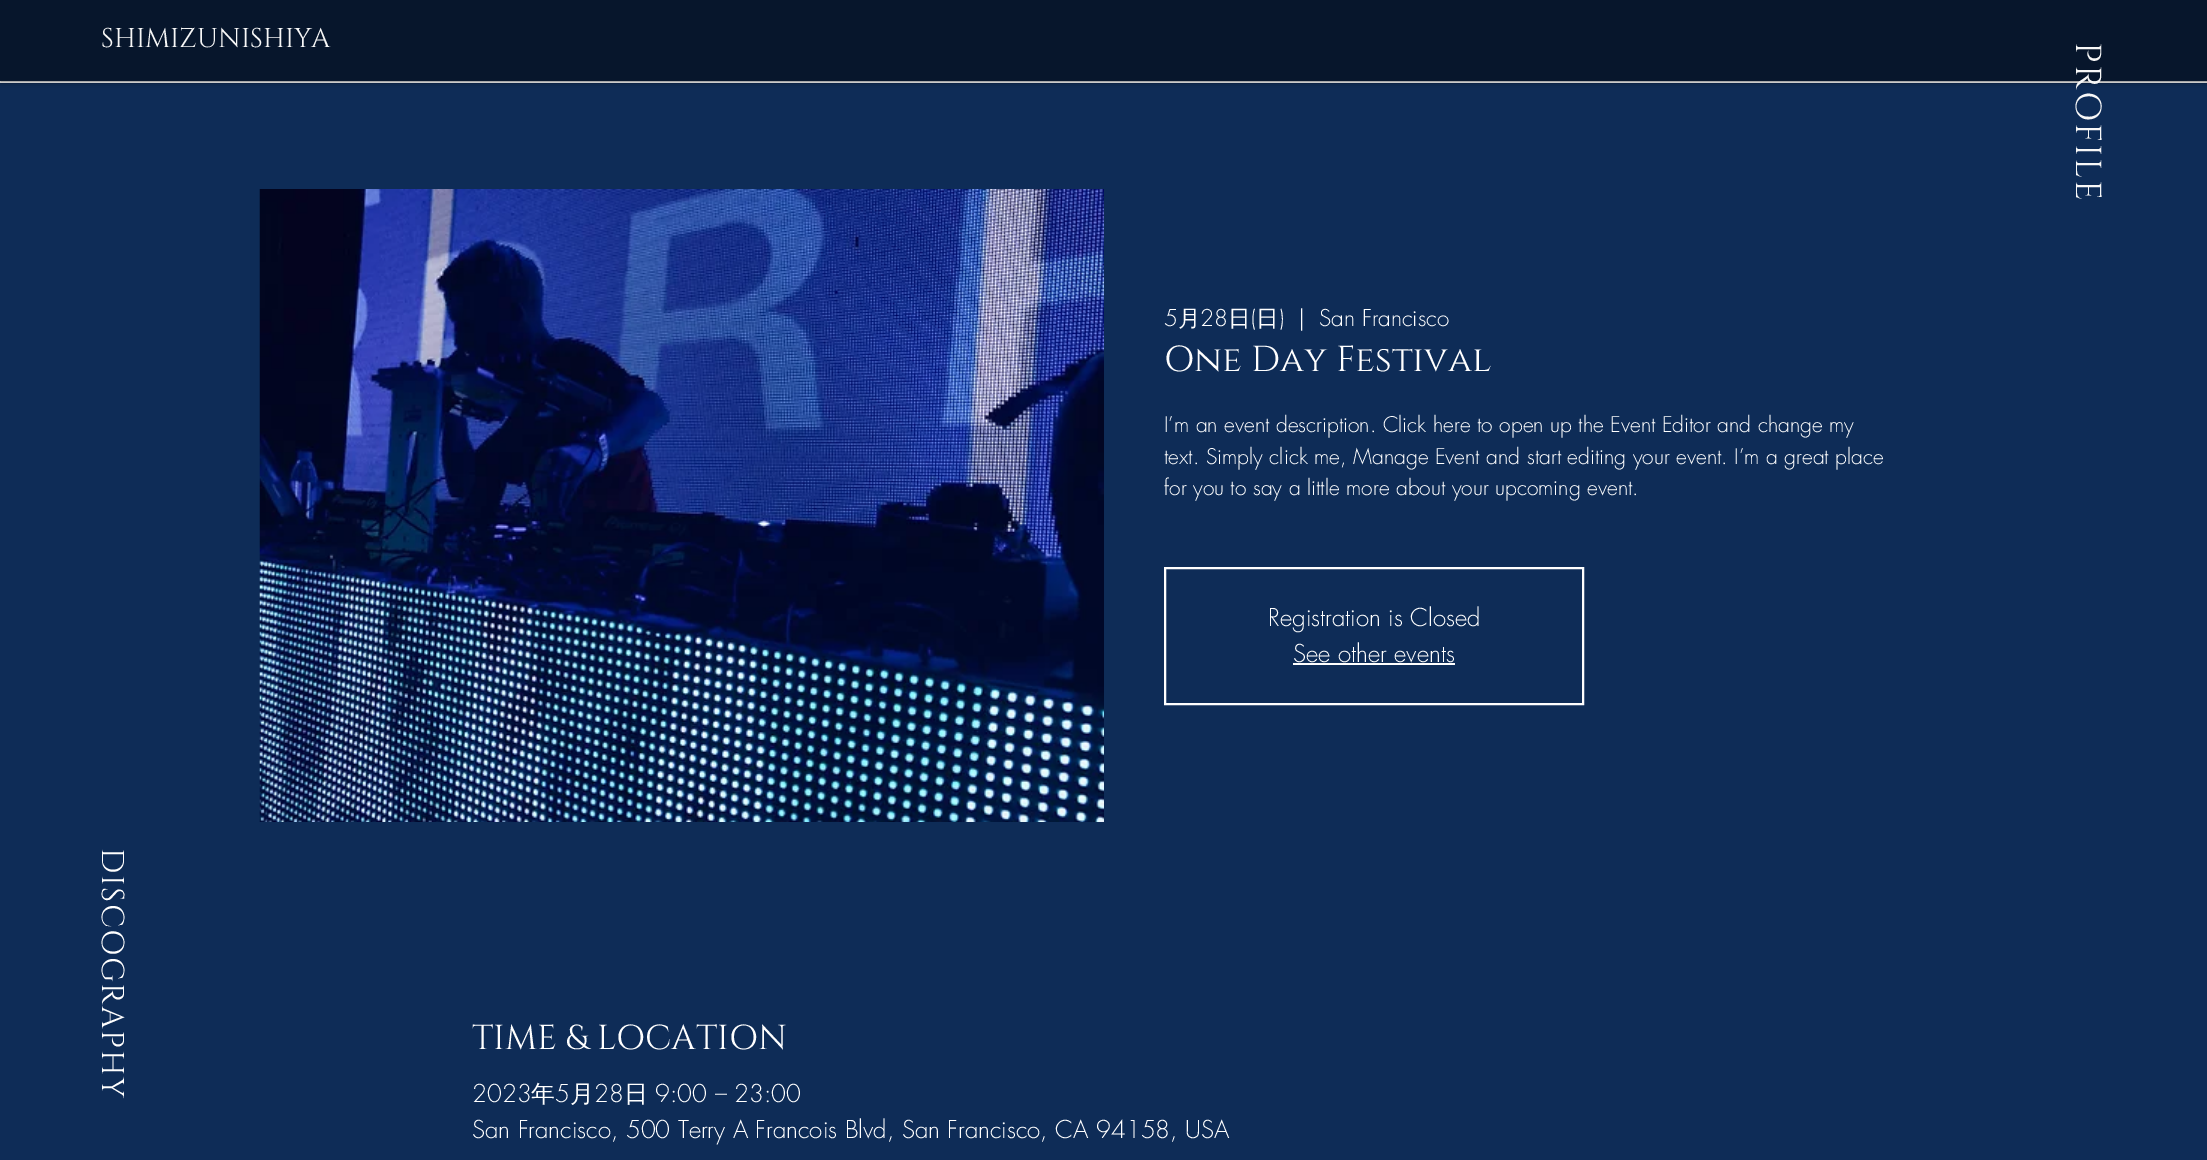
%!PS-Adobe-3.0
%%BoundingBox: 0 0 2207 1160
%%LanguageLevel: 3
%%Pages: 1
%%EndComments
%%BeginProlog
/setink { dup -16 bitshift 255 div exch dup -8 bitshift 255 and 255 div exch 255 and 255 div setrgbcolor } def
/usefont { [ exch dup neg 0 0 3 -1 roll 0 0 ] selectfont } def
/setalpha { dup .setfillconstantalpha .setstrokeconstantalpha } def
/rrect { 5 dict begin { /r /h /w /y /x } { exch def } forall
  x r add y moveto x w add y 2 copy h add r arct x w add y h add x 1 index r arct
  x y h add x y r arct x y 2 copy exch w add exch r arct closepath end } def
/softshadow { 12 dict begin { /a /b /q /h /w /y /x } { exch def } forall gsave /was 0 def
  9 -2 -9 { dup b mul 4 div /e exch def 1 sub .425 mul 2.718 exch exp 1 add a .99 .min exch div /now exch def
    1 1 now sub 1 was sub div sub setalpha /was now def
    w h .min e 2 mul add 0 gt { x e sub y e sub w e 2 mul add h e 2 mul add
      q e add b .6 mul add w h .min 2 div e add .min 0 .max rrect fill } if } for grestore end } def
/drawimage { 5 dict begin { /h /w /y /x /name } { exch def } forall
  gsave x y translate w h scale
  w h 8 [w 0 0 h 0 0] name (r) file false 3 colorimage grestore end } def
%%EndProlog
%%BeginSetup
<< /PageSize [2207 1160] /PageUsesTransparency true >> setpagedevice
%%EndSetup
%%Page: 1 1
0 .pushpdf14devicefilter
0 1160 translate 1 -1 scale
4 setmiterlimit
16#FFFFFF setink
0 0 2207 1160 rectfill
16#0E2C57 setink
0 83 2207 1077 rectfill
16#000000 setink
0 0 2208 81 0 4 0.7 softshadow
16#07162C setink
0 0 2207 81 rectfill
/Cinzel-Regular 27 usefont
16#F7F7F7 setink
101 47 moveto (SHIMIZUNISHIYA) show
/Cinzel-Regular 36 usefont
gsave 2076 42 translate 90 rotate 0 0 moveto 1.75 0 (PROFILE) ashow grestore
/Cinzel-Regular 31.5 usefont
16#FFFFFF setink
gsave 102 848 translate 90 rotate 0 0 moveto 1.5 0 (DISCOGRAPHY) ashow grestore
(img1.raw) 259 189 845 633 drawimage
/futura-Light 22.5 usefont
1164 326 moveto (5) show
/WenQuanYiZenHei-Medium 22.5 usefont
1178 326 moveto (月) show
/futura-Light 22.5 usefont
1200 326 moveto (28) show
/WenQuanYiZenHei-Medium 22.5 usefont
1228 326 moveto (日) show
/futura-Light 22.5 usefont
1251 326 moveto (\() show
/WenQuanYiZenHei-Medium 22.5 usefont
1256 326 moveto (日) show
/futura-Light 22.5 usefont
[
    [(\)) 1279 326]
    [(|) 1298 326]
    [(San Francisco) 1319 326]
] { aload pop moveto show } forall
/Cinzel-Regular 36 usefont
1164 371 moveto (One Day Festival) show
/futura-Light 21 usefont
[
    [(I’m an event description. Click here to open up the Event Editor and change my) 1164 432]
    [(text. Simply click me, Manage Event and start editing your event. I’m a great place) 1164 464]
    [(for you to say a little more about your upcoming event.) 1164 495]
] { aload pop moveto show } forall
2 setlinewidth
1165 568 418 136 rectstroke
/futura-Light 24 usefont
1268 626 moveto (Registration is Closed) show
1293 662 moveto (See other events) show
1293 663 162 2 rectfill
/Cinzel-Regular 34.5 usefont
472 1049 moveto (TIME & LOCATION) show
/futura-Light 24 usefont
472 1102 moveto (2023) show
/WenQuanYiZenHei-Medium 24 usefont
531 1102 moveto (年) show
/futura-Light 24 usefont
555 1102 moveto (5) show
/WenQuanYiZenHei-Medium 24 usefont
570 1102 moveto (月) show
/futura-Light 24 usefont
594 1102 moveto (28) show
/WenQuanYiZenHei-Medium 24 usefont
624 1102 moveto (日) show
/futura-Light 24 usefont
655 1102 moveto (9:00 – 23:00) show
472 1138 moveto (San Francisco, 500 Terry A Francois Blvd, San Francisco, CA 94158, USA) show
.poppdf14devicefilter showpage
%%EOF
